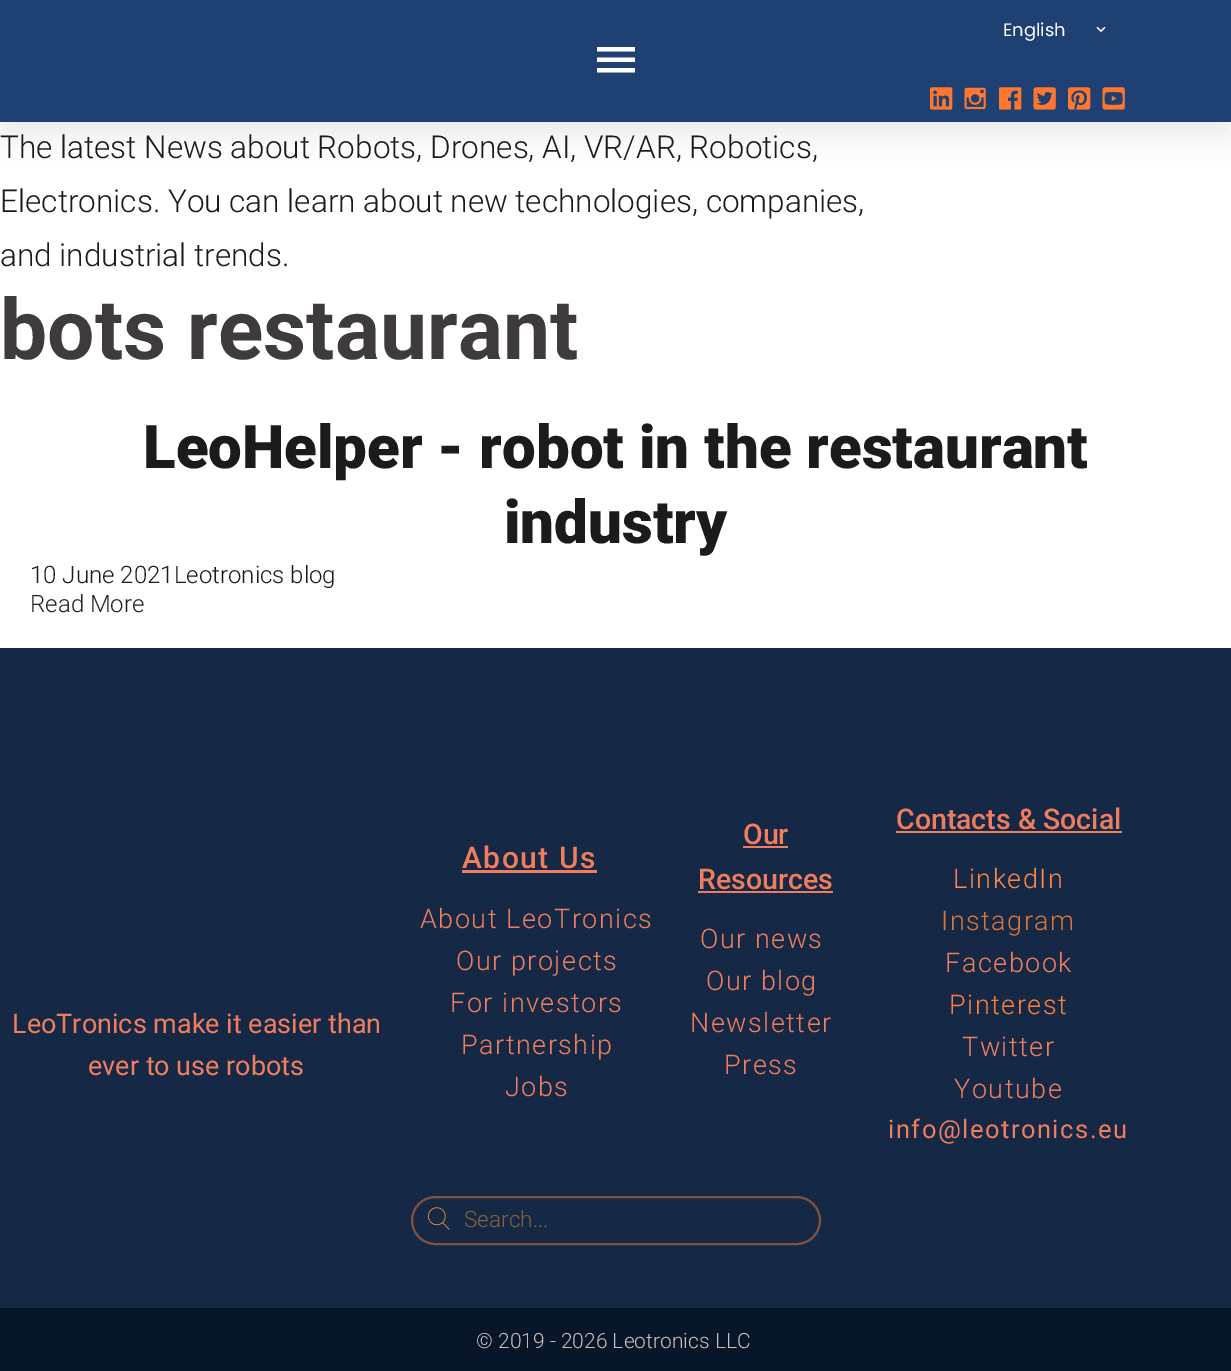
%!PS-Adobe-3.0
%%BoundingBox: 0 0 1231 1371
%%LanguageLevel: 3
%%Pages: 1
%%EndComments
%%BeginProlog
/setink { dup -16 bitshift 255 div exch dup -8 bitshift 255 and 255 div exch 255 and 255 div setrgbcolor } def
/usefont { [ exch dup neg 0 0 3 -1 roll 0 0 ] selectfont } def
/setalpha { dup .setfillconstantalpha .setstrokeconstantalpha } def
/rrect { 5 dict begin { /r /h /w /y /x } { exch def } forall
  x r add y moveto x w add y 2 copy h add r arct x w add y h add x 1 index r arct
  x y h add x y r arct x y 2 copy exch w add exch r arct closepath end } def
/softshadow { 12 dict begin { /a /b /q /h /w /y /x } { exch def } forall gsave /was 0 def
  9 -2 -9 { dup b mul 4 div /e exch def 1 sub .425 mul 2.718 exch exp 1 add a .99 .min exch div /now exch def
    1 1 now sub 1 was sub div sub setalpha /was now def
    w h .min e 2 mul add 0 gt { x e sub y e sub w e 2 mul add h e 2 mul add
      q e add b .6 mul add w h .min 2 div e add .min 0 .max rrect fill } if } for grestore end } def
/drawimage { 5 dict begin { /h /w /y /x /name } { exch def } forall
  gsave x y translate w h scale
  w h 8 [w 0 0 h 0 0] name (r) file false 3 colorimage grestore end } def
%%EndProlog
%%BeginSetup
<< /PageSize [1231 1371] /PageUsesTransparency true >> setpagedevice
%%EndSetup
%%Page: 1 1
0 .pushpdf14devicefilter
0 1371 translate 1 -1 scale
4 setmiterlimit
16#FFFFFF setink
0 0 1231 1371 rectfill
gsave
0 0 moveto 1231 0 lineto 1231 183 lineto 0 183 lineto closepath 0 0 moveto 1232 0 lineto 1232 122 lineto 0 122 lineto closepath eoclip newpath
16#000000 setink
0 15 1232 122 0 15 0.07 softshadow
grestore
0.88 setalpha
16#00265E setink
0 0 1231 122 rectfill
/Poppins-Regular 18 usefont
1 setalpha
16#FFFFFF setink
1003 36 moveto (English) show
(img1.raw) 1096 26 10 7 drawimage
(img2.raw) 930 87 23 23 drawimage
(img3.raw) 964 87 22 23 drawimage
(img4.raw) 999 87 23 23 drawimage
(img5.raw) 1033 87 23 23 drawimage
(img6.raw) 1068 87 23 23 drawimage
(img7.raw) 1102 87 23 23 drawimage
597 72.5 moveto 597 68 lineto 635 68 lineto 635 72.5 lineto closepath 597 62 moveto 597 57.5 lineto 635 57.5 lineto 635 62 lineto closepath 597 47 moveto 635 47 lineto 635 51.5 lineto 597 51.5 lineto closepath fill
/Roboto-Light 31.5 usefont
16#1B1B1D setink
[
    [(The latest News about Robots, Drones, AI, VR/AR, Robotics,) 0 158]
    [(Electronics. You can learn about new technologies, companies,) 0 212]
    [(and industrial trends.) 0 266]
] { aload pop moveto show } forall
/Roboto-Bold 84 usefont
16#403B3B setink
0 359 moveto (bots restaurant) show
/Roboto-Black 60 usefont
16#1B1B1D setink
143 468 moveto (LeoHelper - robot in the restaurant) show
504 543 moveto (industry) show
/Roboto-Light 24 usefont
30 583 moveto (10 June 2021Leotronics blog) show
16#212121 setink
30 612 moveto (Read More) show
16#152947 setink
0 648 1231 660 rectfill
/Roboto-Regular 27 usefont
16#F17D5D setink
12 1033 moveto (LeoTronics make it easier than) show
88 1075 moveto (ever to use robots) show
/Roboto-Medium 30 usefont
462 868 moveto 1.5 0 (About Us) ashow
462 870 135 3 rectfill
/Roboto-Light 27 usefont
420 928 moveto 1.5 0 (About LeoTronics) ashow
456 970 moveto 1.5 0 (Our projects) ashow
450 1012 moveto 1.5 0 (For investors) ashow
461 1054 moveto 1.5 0 (Partnership) ashow
505 1096 moveto 1.5 0 (Jobs) ashow
/Roboto-Medium 28.5 usefont
743 844 moveto (Our) show
743 846 45 2 rectfill
698 889 moveto (Resources) show
698 891 135 2 rectfill
/Roboto-Light 27 usefont
700 948 moveto 1.5 0 (Our news) ashow
706 990 moveto 1.5 0 (Our blog) ashow
690 1032 moveto 1.5 0 (Newsletter) ashow
724 1074 moveto 1.5 0 (Press) ashow
/Roboto-Medium 28.5 usefont
896 829 moveto (Contacts & Social) show
896 831 226 2 rectfill
/Roboto-Light 27 usefont
16#FF8747 setink
953 888 moveto 1.5 0 (LinkedIn) ashow
16#D97536 setink
941 930 moveto 1.5 0 (Instagram) ashow
16#F17D5D setink
945 972 moveto 1.5 0 (Facebook) ashow
16#FF7E38 setink
949 1014 moveto 1.5 0 (Pinterest) ashow
16#F17D5D setink
962 1056 moveto 1.5 0 (Twitter) ashow
954 1098 moveto 1.5 0 (Youtube) ashow
/Roboto-Regular 25.5 usefont
888 1138 moveto 1.5 0 (info@leotronics.eu) ashow
16#7F533E setink
2 setlinewidth
412 1197 408 47 23.5 rrect stroke
(img8.raw) 427 1207 23 23 drawimage
/Roboto-Light 22.5 usefont
16#846237 setink
464 1227 moveto (Search...) show
16#071629 setink
0 1308 1231 63 rectfill
/Roboto-Light 21 usefont
16#CCBEBA setink
476 1348 moveto (© 2019 - 2026 Leotronics LLC) show
.poppdf14devicefilter showpage
%%EOF
